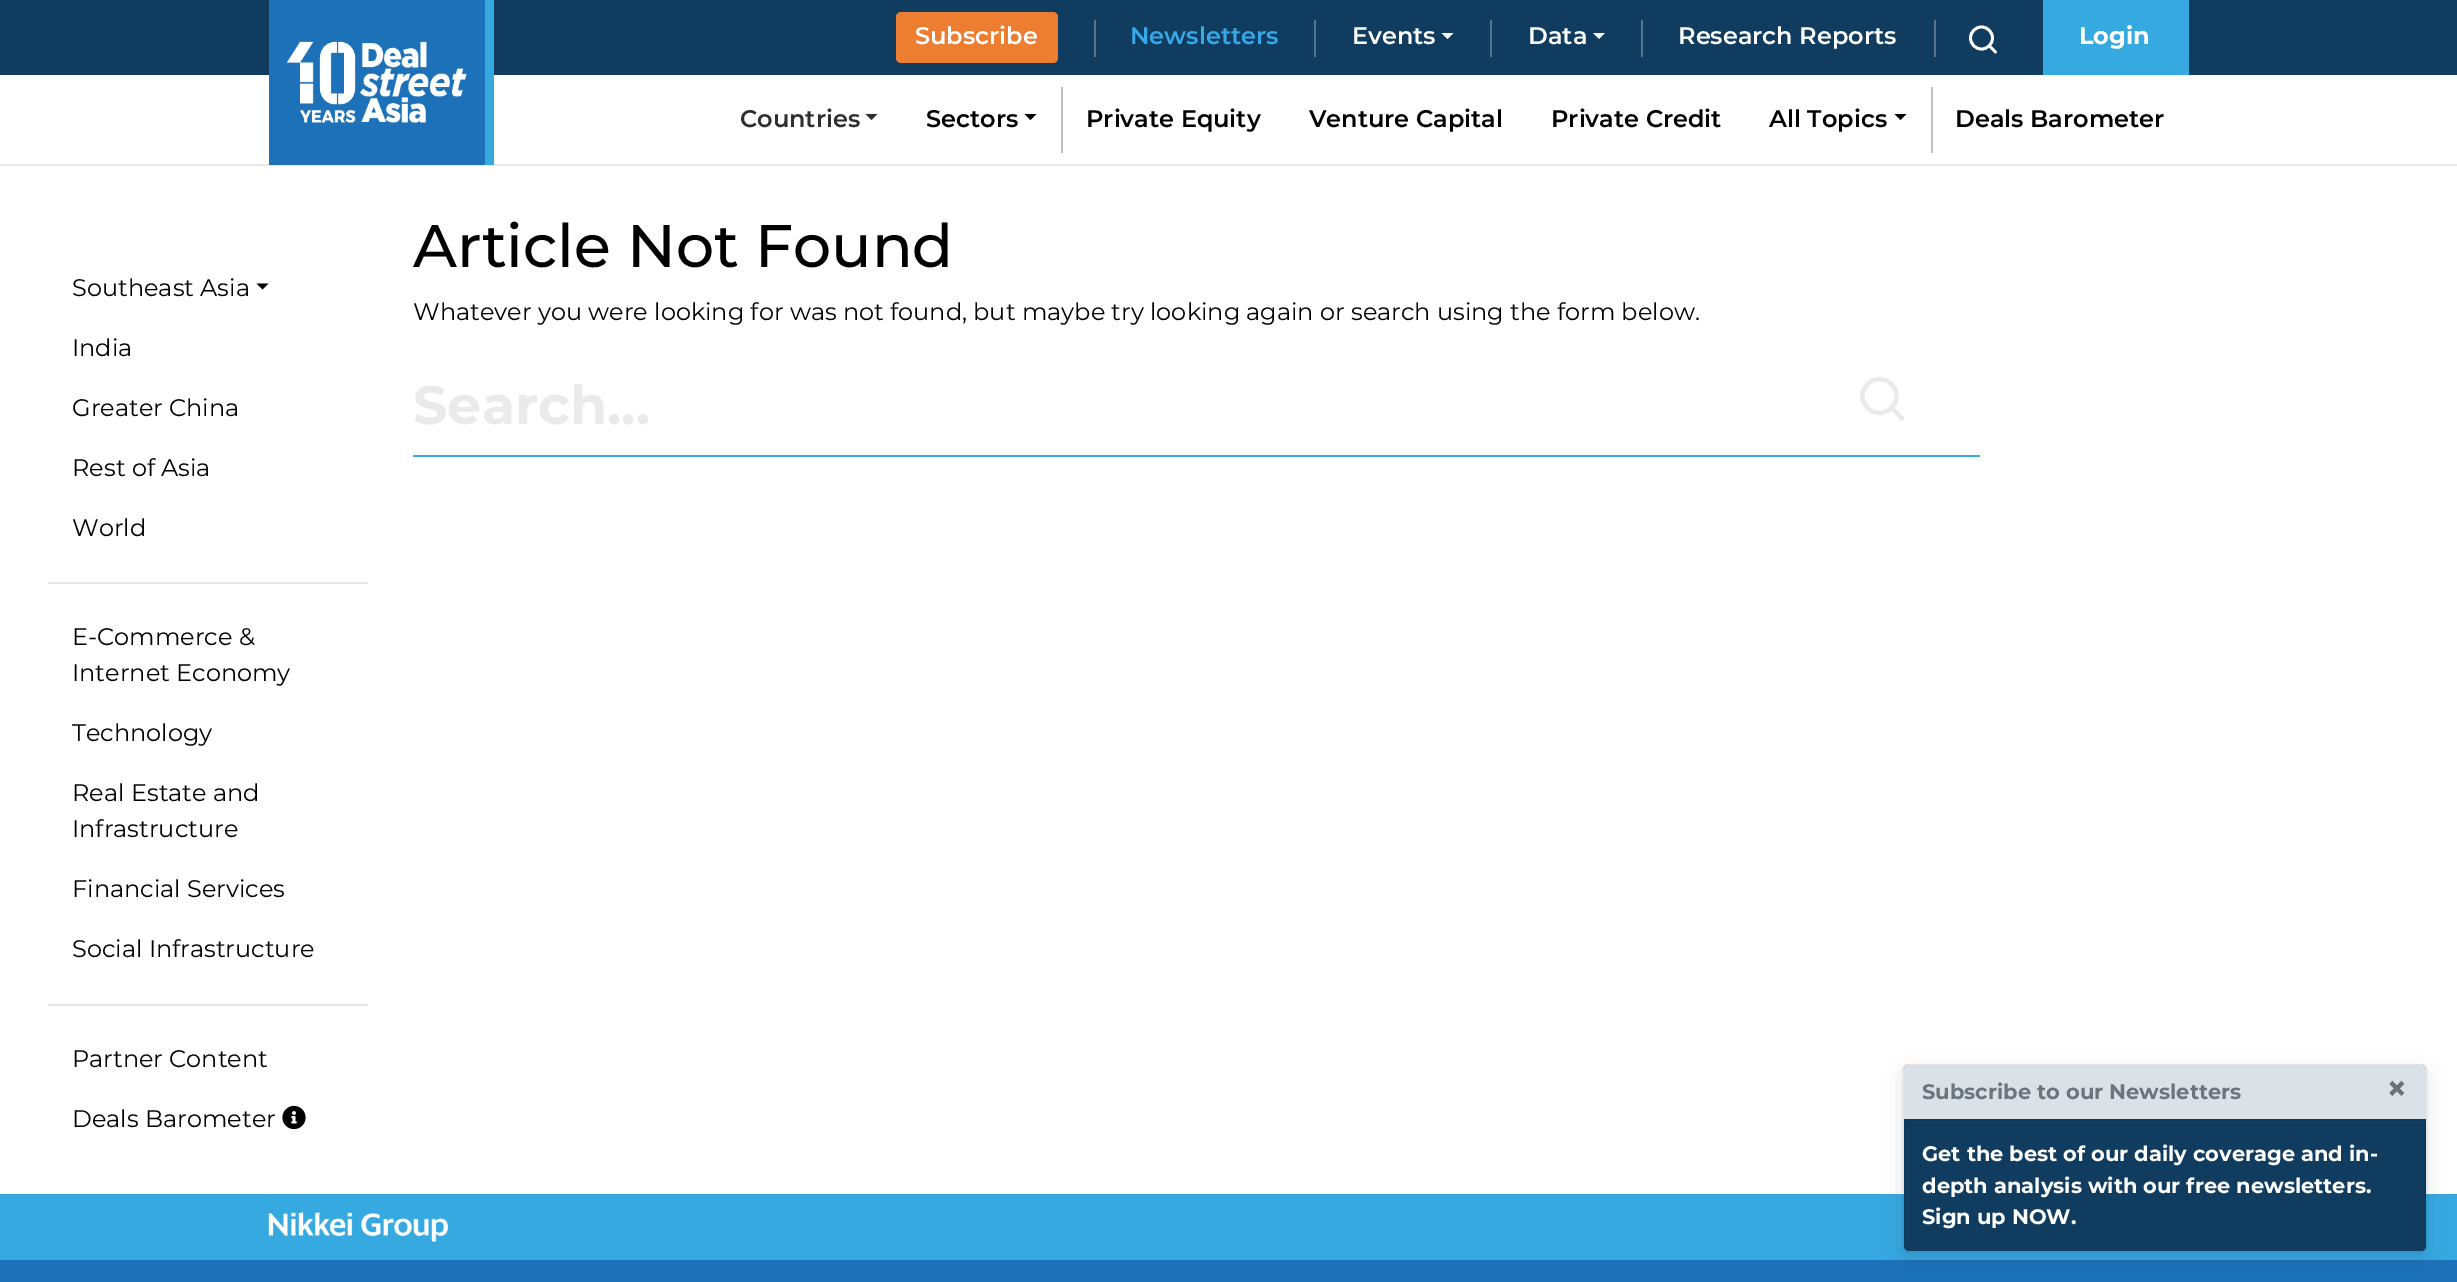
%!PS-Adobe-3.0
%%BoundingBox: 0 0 2457 1282
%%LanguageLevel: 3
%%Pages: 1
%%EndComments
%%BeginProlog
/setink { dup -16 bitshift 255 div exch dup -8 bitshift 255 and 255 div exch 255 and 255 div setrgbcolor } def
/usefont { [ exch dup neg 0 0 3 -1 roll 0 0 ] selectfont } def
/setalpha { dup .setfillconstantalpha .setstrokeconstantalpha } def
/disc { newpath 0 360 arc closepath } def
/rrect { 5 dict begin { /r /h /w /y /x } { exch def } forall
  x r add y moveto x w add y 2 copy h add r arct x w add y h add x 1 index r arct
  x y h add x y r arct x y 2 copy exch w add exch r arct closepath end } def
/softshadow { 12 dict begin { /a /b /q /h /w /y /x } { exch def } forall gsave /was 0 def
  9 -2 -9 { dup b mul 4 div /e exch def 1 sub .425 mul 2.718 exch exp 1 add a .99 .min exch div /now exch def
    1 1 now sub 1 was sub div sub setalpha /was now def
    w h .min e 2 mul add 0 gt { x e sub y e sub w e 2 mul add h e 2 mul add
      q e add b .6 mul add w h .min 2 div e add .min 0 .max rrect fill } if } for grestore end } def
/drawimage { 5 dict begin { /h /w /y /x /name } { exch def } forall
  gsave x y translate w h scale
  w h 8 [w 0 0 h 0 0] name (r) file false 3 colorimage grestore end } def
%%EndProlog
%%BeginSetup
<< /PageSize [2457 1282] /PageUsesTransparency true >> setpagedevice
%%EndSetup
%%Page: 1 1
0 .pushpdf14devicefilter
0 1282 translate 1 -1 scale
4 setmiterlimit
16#FFFFFF setink
0 0 2457 1282 rectfill
[
    [0 164 2457 2 16#EAEAEA]
    [0 0 2457 75 16#103C60]
    [269 0 216 165 16#1D71B8]
    [485 0 9 165 16#36A9E1]
] { aload pop setink rectfill } forall
(img1.raw) 286 41 181 82 drawimage
16#EC7D31 setink
896 12 162 51 5 rrect fill
/Montserrat-SemiBold 24 usefont
16#FFFFFF setink
915 44 moveto (Subscribe) show
16#54748D setink
1094 20 2 37 rectfill
16#36A9EA setink
1130 44 moveto (Newsletters) show
16#54748D setink
1314 20 2 37 rectfill
16#FFFFFF setink
1352 44 moveto (Events) show
1441.5 33 moveto 1453.5 33 lineto 1447.5 39 lineto closepath fill
16#54748D setink
1490 20 2 37 rectfill
16#FFFFFF setink
1528 44 moveto (Data) show
1593 33 moveto 1605 33 lineto 1599 39 lineto closepath fill
16#54748D setink
1641 20 2 37 rectfill
16#FFFFFF setink
1678 44 moveto (Research Reports) show
16#54748D setink
1934 20 2 37 rectfill
16#FFFFFF setink
2.8 setlinewidth
1981.5 38 11 disc stroke
1 setlinecap
1 setlinejoin
1995.5 52 moveto 1989.5 46 lineto stroke
16#36A9E1 setink
2043 0 146 75 rectfill
/Montserrat-Bold 24 usefont
16#FFFFFF setink
2079 44 moveto (Login) show
/Montserrat-SemiBold 24 usefont
16#2E2E2E setink
740 127 moveto (Countries) show
865.5 114 moveto 877.5 114 lineto 871.5 120 lineto closepath fill
16#000000 setink
926 127 moveto (Sectors) show
1024.5 114 moveto 1036.5 114 lineto 1030.5 120 lineto closepath fill
16#BFBFBF setink
1061 87 2 66 rectfill
16#000000 setink
[
    [(Private Equity) 1086 127]
    [(Venture Capital) 1309 127]
    [(Private Credit) 1551 127]
    [(All Topics) 1769 127]
] { aload pop moveto show } forall
1894.5 114 moveto 1906.5 114 lineto 1900.5 120 lineto closepath fill
16#BFBFBF setink
1931 87 2 66 rectfill
16#000000 setink
1955 127 moveto (Deals Barometer) show
/Montserrat-Regular 24 usefont
72 296 moveto (Southeast Asia) show
256.5 283.5 moveto 268.5 283.5 lineto 262.5 289.5 lineto closepath fill
[
    [(India) 72 356]
    [(Greater China) 72 416]
    [(Rest of Asia) 72 476]
    [(World) 72 536]
] { aload pop moveto show } forall
16#E6E6E6 setink
48 582 320 2 rectfill
16#000000 setink
[
    [(E-Commerce &) 72 645]
    [(Internet Economy) 72 681]
    [(Technology) 72 741]
    [(Real Estate and) 72 801]
    [(Infrastructure) 72 837]
    [(Financial Services) 72 897]
    [(Social Infrastructure) 72 957]
] { aload pop moveto show } forall
16#E6E6E6 setink
48 1004 320 2 rectfill
16#000000 setink
72 1067 moveto (Partner Content) show
72 1127 moveto (Deals Barometer) show
(img2.raw) 282 1105 24 25 drawimage
/Montserrat-Medium 60 usefont
413 267 moveto (Article Not Found) show
/Montserrat-Regular 24 usefont
413 320 moveto (Whatever you were looking for was not found, but maybe try looking again or search using the form below.) show
16#36A9E1 setink
413 455 1567 2 rectfill
/Montserrat-Bold 54 usefont
16#EAEAEA setink
413 424 moveto (Search...) show
gsave
1860 377 45 45 rectclip
4.2 setlinewidth
0 setlinecap
0 setlinejoin
1879.5 396 17 disc stroke
grestore
4.2 setlinewidth
1892.5 409 moveto 1902 418.5 lineto stroke
16#36A9E1 setink
0 1194 2457 66 rectfill
16#1D71B8 setink
0 1260 2457 22 rectfill
gsave
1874 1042 moveto 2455 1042 lineto 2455 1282 lineto 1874 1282 lineto closepath 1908 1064 moveto 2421 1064 lineto 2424.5 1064 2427 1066.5 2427 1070 curveto 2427 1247 lineto 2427 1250.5 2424.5 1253 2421 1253 curveto 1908 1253 lineto 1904.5 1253 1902 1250.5 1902 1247 curveto 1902 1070 lineto 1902 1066.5 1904.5 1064 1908 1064 curveto closepath eoclip newpath
16#000000 setink
1902 1070 525 189 6 9 0.1 softshadow
grestore
16#103C60 setink
1904 1065 522 186 5 rrect fill
0.1 setalpha
16#000000 setink
2 setlinewidth
0 setlinecap
0 setlinejoin
1903 1065 523 187 5 rrect stroke
0.85 setalpha
16#FFFFFF setink
1909 1065 moveto 2421 1065 lineto 2424 1065 2426 1067 2426 1070 curveto 2426 1119 lineto 1904 1119 lineto 1904 1070 lineto 1904 1067 1906 1065 1909 1065 curveto closepath fill
0.05 setalpha
16#000000 setink
1904 1119 522 2 rectfill
/Montserrat-Bold 21 usefont
1 setalpha
16#6C757D setink
1922 1099 moveto (Subscribe to our Newsletters) show
/Montserrat-Bold 36 usefont
16#6E7174 setink
2386 1101 moveto (×) show
/Montserrat-Bold 21 usefont
16#FFFFFF setink
[
    [(Get the best of our daily coverage and in-) 1922 1161]
    [(depth analysis with our free newsletters.) 1922 1193]
    [(Sign up NOW.) 1922 1224]
] { aload pop moveto show } forall
(img3.raw) 268 1212 181 30 drawimage
.poppdf14devicefilter showpage
%%EOF
